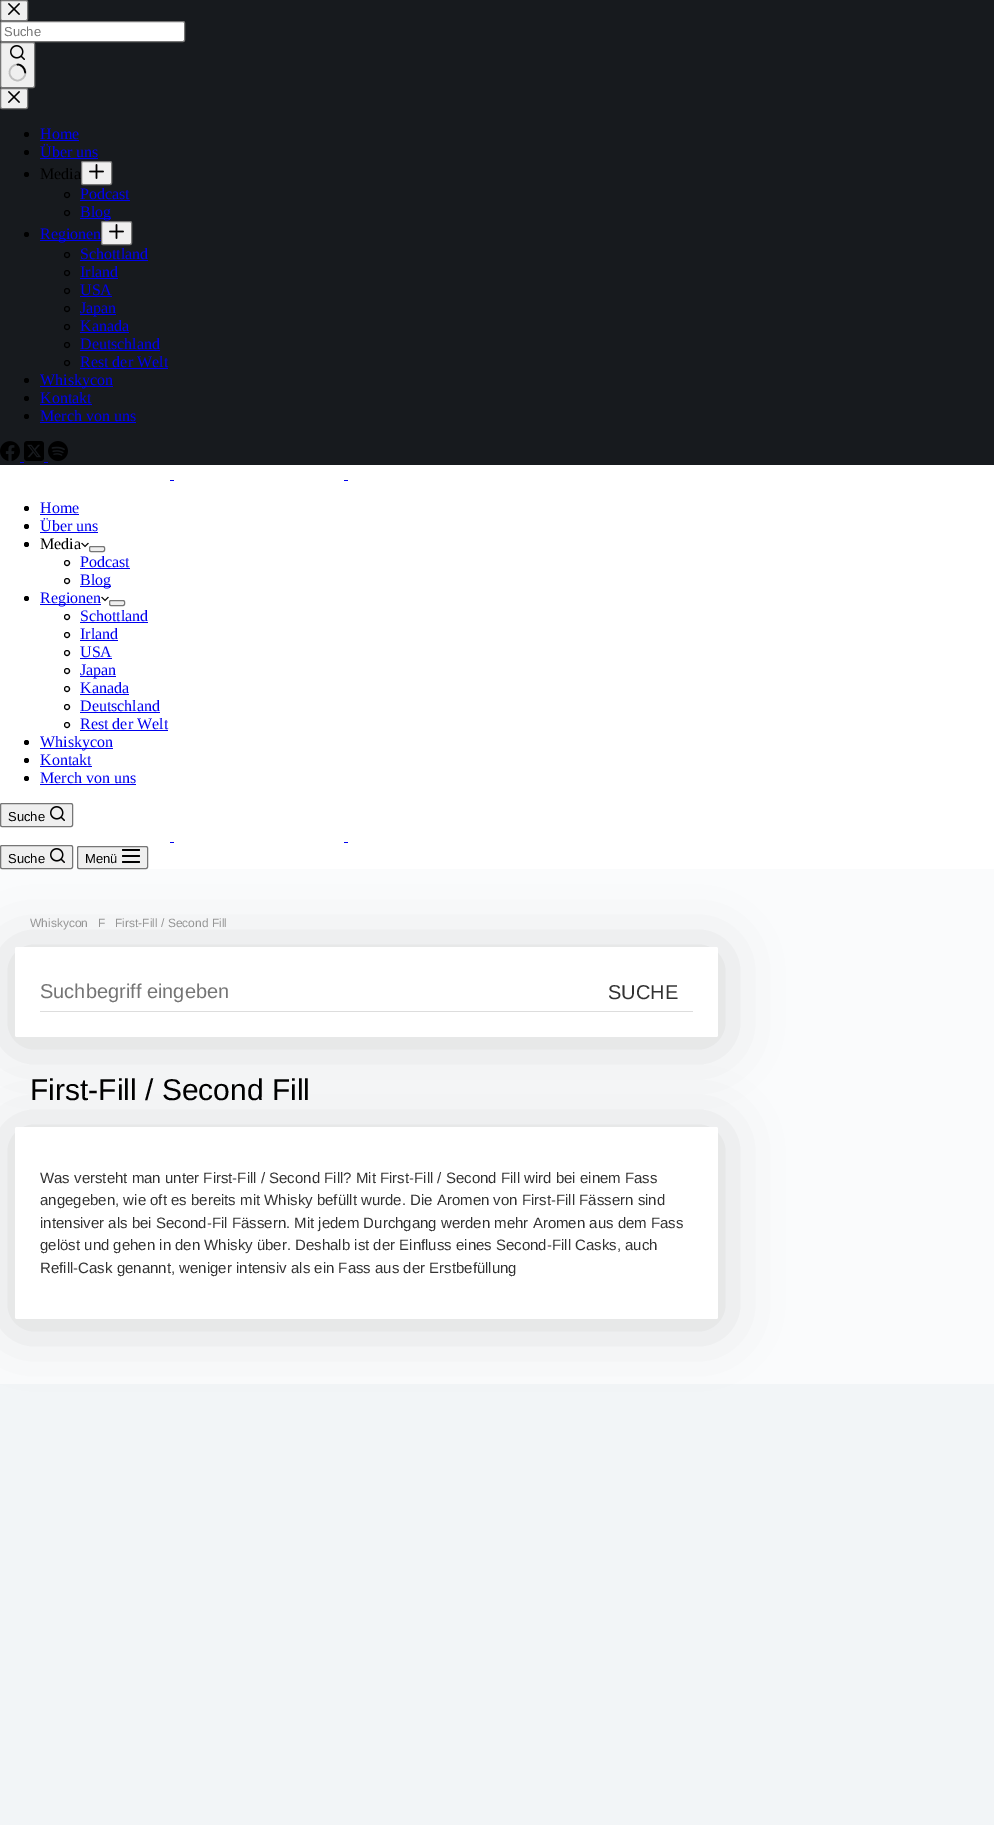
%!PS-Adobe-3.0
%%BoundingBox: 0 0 994 1825
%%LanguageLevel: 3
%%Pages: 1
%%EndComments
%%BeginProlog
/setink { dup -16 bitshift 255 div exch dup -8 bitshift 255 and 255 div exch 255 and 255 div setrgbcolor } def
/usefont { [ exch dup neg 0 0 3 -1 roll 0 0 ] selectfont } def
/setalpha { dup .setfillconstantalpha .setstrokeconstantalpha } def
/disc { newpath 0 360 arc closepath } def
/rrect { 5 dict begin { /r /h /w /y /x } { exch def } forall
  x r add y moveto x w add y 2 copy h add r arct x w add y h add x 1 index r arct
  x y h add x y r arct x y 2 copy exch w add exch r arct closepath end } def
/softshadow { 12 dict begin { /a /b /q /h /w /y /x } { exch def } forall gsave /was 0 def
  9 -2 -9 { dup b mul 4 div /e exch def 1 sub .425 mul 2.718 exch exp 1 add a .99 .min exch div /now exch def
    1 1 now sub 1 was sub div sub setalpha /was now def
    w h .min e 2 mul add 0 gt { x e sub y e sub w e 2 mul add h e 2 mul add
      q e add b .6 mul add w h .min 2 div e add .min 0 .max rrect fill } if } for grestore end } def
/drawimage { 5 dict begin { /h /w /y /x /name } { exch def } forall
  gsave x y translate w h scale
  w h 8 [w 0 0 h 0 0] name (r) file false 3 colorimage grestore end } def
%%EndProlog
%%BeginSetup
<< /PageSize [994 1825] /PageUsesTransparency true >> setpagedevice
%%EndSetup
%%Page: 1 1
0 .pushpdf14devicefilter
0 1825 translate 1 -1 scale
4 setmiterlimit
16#FAFBFC setink
0 0 994 1825 rectfill
16#171A1E setink
0 0 994 465 rectfill
16#EFEFEF setink
0.5 0.5 27 20 1.5 rrect gsave fill grestore
16#767676 setink
stroke
(img1.raw) 8 3 12 12 drawimage
16#FFFFFF setink
0.5 21.5 184 20 1.5 rrect gsave fill grestore
16#767676 setink
stroke
/LiberationSans-Regular 13 usefont
16#757575 setink
4 36 moveto (Suche) show
16#EFEFEF setink
0.5 42.5 34 45 1.5 rrect gsave fill grestore
16#767676 setink
stroke
(img2.raw) 10 45 15 15 drawimage
16#BFBFBF setink
1.6 setlinewidth
17.5 72.5 8 disc stroke
16#000000 setink
1 setlinecap
17.5 64.5 moveto 21.5 64.5 25 68 25 72.5 curveto stroke
16#EFEFEF setink
0.5 88.5 27 20 1.5 rrect gsave fill grestore
16#767676 setink
1 setlinewidth
0 setlinecap
stroke
(img1.raw) 8 91 12 12 drawimage
16#000000 setink
26.5 134.5 2.5 disc fill
/LiberationSerif-Regular 16 usefont
16#0000EE setink
40 139 moveto (Home) show
40 140 39 1 rectfill
16#000000 setink
26.5 152.5 2.5 disc fill
16#0000EE setink
40 157 moveto (Über uns) show
40 158 58 1 rectfill
16#000000 setink
26.5 174.5 2.5 disc fill
40 179 moveto (Media) show
16#EFEFEF setink
81.5 161.5 30 23 1.5 rrect gsave fill grestore
16#767676 setink
stroke
(img3.raw) 89 164 15 15 drawimage
16#000000 setink
67 195 2.5 disc stroke
16#0000EE setink
80 199 moveto (Podcast) show
80 200 50 1 rectfill
16#000000 setink
67 213 2.5 disc stroke
16#0000EE setink
80 218 31 1 rectfill
80 217 moveto (Blog) show
16#000000 setink
26.5 234.5 2.5 disc fill
16#0000EE setink
40 240 61 1 rectfill
40 239 moveto (Regionen) show
16#EFEFEF setink
101.5 221.5 30 23 1.5 rrect gsave fill grestore
16#767676 setink
stroke
(img3.raw) 109 224 15 15 drawimage
16#000000 setink
67 255 2.5 disc stroke
16#0000EE setink
80 259 moveto (Schottland) show
80 260 68 1 rectfill
16#000000 setink
67 273 2.5 disc stroke
16#0000EE setink
80 277 moveto (Irland) show
80 278 38 1 rectfill
16#000000 setink
67 291 2.5 disc stroke
16#0000EE setink
80 295 moveto (USA) show
80 296 32 1 rectfill
16#000000 setink
67 309 2.5 disc stroke
16#0000EE setink
80 314 36 1 rectfill
80 313 moveto (Japan) show
16#000000 setink
67 327 2.5 disc stroke
16#0000EE setink
80 331 moveto (Kanada) show
80 332 49 1 rectfill
16#000000 setink
67 345 2.5 disc stroke
16#0000EE setink
80 349 moveto (Deutschland) show
80 350 80 1 rectfill
16#000000 setink
67 363 2.5 disc stroke
16#0000EE setink
80 367 moveto (Rest der Welt) show
80 368 88 1 rectfill
16#000000 setink
26.5 380.5 2.5 disc fill
16#0000EE setink
40 386 73 1 rectfill
40 385 moveto (Whiskycon) show
16#000000 setink
26.5 398.5 2.5 disc fill
16#0000EE setink
40 403 moveto (Kontakt) show
40 404 52 1 rectfill
16#000000 setink
26.5 416.5 2.5 disc fill
16#0000EE setink
40 421 moveto (Merch von uns) show
40 422 96 1 rectfill
(img4.raw) 0 441 20 20 drawimage
(img5.raw) 24 441 20 20 drawimage
(img6.raw) 48 441 20 20 drawimage
[
    [20 462 4 1 16#0000EE]
    [44 462 4 1 16#0000EE]
    [0 465 994 404 16#FFFFFF]
    [170 480 4 1 16#0000EE]
    [344 480 4 1 16#0000EE]
] { aload pop setink rectfill } forall
16#000000 setink
26.5 508.5 2.5 disc fill
16#0000EE setink
40 513 moveto (Home) show
40 514 39 1 rectfill
16#000000 setink
26.5 526.5 2.5 disc fill
16#0000EE setink
40 531 moveto (Über uns) show
40 532 58 1 rectfill
16#000000 setink
26.5 544.5 2.5 disc fill
40 549 moveto (Media) show
(img7.raw) 81 542 8 6 drawimage
16#EFEFEF setink
89.5 546.5 15 5 1.5 rrect gsave fill grestore
16#767676 setink
stroke
16#000000 setink
67 563 2.5 disc stroke
16#0000EE setink
80 567 moveto (Podcast) show
80 568 50 1 rectfill
16#000000 setink
67 581 2.5 disc stroke
16#0000EE setink
80 586 31 1 rectfill
80 585 moveto (Blog) show
16#000000 setink
26.5 598.5 2.5 disc fill
16#0000EE setink
40 604 61 1 rectfill
40 603 moveto (Regionen) show
(img7.raw) 101 596 8 6 drawimage
16#EFEFEF setink
109.5 600.5 15 5 1.5 rrect gsave fill grestore
16#767676 setink
stroke
16#000000 setink
67 617 2.5 disc stroke
16#0000EE setink
80 621 moveto (Schottland) show
80 622 68 1 rectfill
16#000000 setink
67 635 2.5 disc stroke
16#0000EE setink
80 639 moveto (Irland) show
80 640 38 1 rectfill
16#000000 setink
67 653 2.5 disc stroke
16#0000EE setink
80 657 moveto (USA) show
80 658 32 1 rectfill
16#000000 setink
67 671 2.5 disc stroke
16#0000EE setink
80 676 36 1 rectfill
80 675 moveto (Japan) show
16#000000 setink
67 689 2.5 disc stroke
16#0000EE setink
80 693 moveto (Kanada) show
80 694 49 1 rectfill
16#000000 setink
67 707 2.5 disc stroke
16#0000EE setink
80 711 moveto (Deutschland) show
80 712 80 1 rectfill
16#000000 setink
67 725 2.5 disc stroke
16#0000EE setink
80 729 moveto (Rest der Welt) show
80 730 88 1 rectfill
16#000000 setink
26.5 742.5 2.5 disc fill
16#0000EE setink
40 748 73 1 rectfill
40 747 moveto (Whiskycon) show
16#000000 setink
26.5 760.5 2.5 disc fill
16#0000EE setink
40 765 moveto (Kontakt) show
40 766 52 1 rectfill
16#000000 setink
26.5 778.5 2.5 disc fill
16#0000EE setink
40 783 moveto (Merch von uns) show
40 784 96 1 rectfill
16#EFEFEF setink
0.5 803.5 72 23 1.5 rrect gsave fill grestore
16#767676 setink
stroke
/LiberationSans-Regular 13 usefont
16#000000 setink
8 821 moveto (Suche) show
(img2.raw) 50 806 15 15 drawimage
16#0000EE setink
170 842 4 1 rectfill
344 842 4 1 rectfill
16#EFEFEF setink
0.5 845.5 72 23 1.5 rrect gsave fill grestore
16#767676 setink
stroke
16#000000 setink
8 863 moveto (Suche) show
(img2.raw) 50 848 15 15 drawimage
16#EFEFEF setink
77.5 846.5 70 22 1.5 rrect gsave fill grestore
16#767676 setink
stroke
16#000000 setink
122 849 18 2 1 rrect fill
85 863 moveto (Menü) show
122 855 18 2 1 rrect fill
122 861 18 2 1 rrect fill
/LiberationSans-Regular 12 usefont
16#999999 setink
[
    [(Whiskycon) 30 927]
    [(F) 98 927]
    [(First-Fill / Second Fill) 115 927]
] { aload pop moveto show } forall
16#000000 setink
15 952 703 90 2 30 0.15 softshadow
16#FFFFFF setink
15 947 703 90 2 rrect fill
16#DDDDDD setink
40 1011 653 1 rectfill
/LiberationSans-Regular 20 usefont
16#757575 setink
40 998 moveto (Suchbegriff eingeben) show
16#333333 setink
608 999 moveto (SUCHE) show
/LiberationSans-Regular 30 usefont
16#000000 setink
30 1100 moveto (First-Fill / Second Fill) show
16#F2F5F7 setink
0 1384 994 441 rectfill
16#000000 setink
15 1132 703 192 2 30 0.15 softshadow
16#FFFFFF setink
15 1127 703 192 2 rrect fill
/LiberationSans-Regular 15 usefont
16#333333 setink
[
    [(Was versteht man unter First-Fill / Second Fill? Mit First-Fill / Second Fill wird bei einem Fass) 40 1183]
    [(angegeben, wie oft es bereits mit Whisky befüllt wurde. Die Aromen von First-Fill Fässern sind) 40 1205]
    [(intensiver als bei Second-Fil Fässern. Mit jedem Durchgang werden mehr Aromen aus dem Fass) 40 1228]
    [(gelöst und gehen in den Whisky über. Deshalb ist der Einfluss eines Second-Fill Casks, auch) 40 1250]
    [(Refill-Cask genannt, weniger intensiv als ein Fass aus der Erstbefüllung) 40 1273]
] { aload pop moveto show } forall
.poppdf14devicefilter showpage
%%EOF
